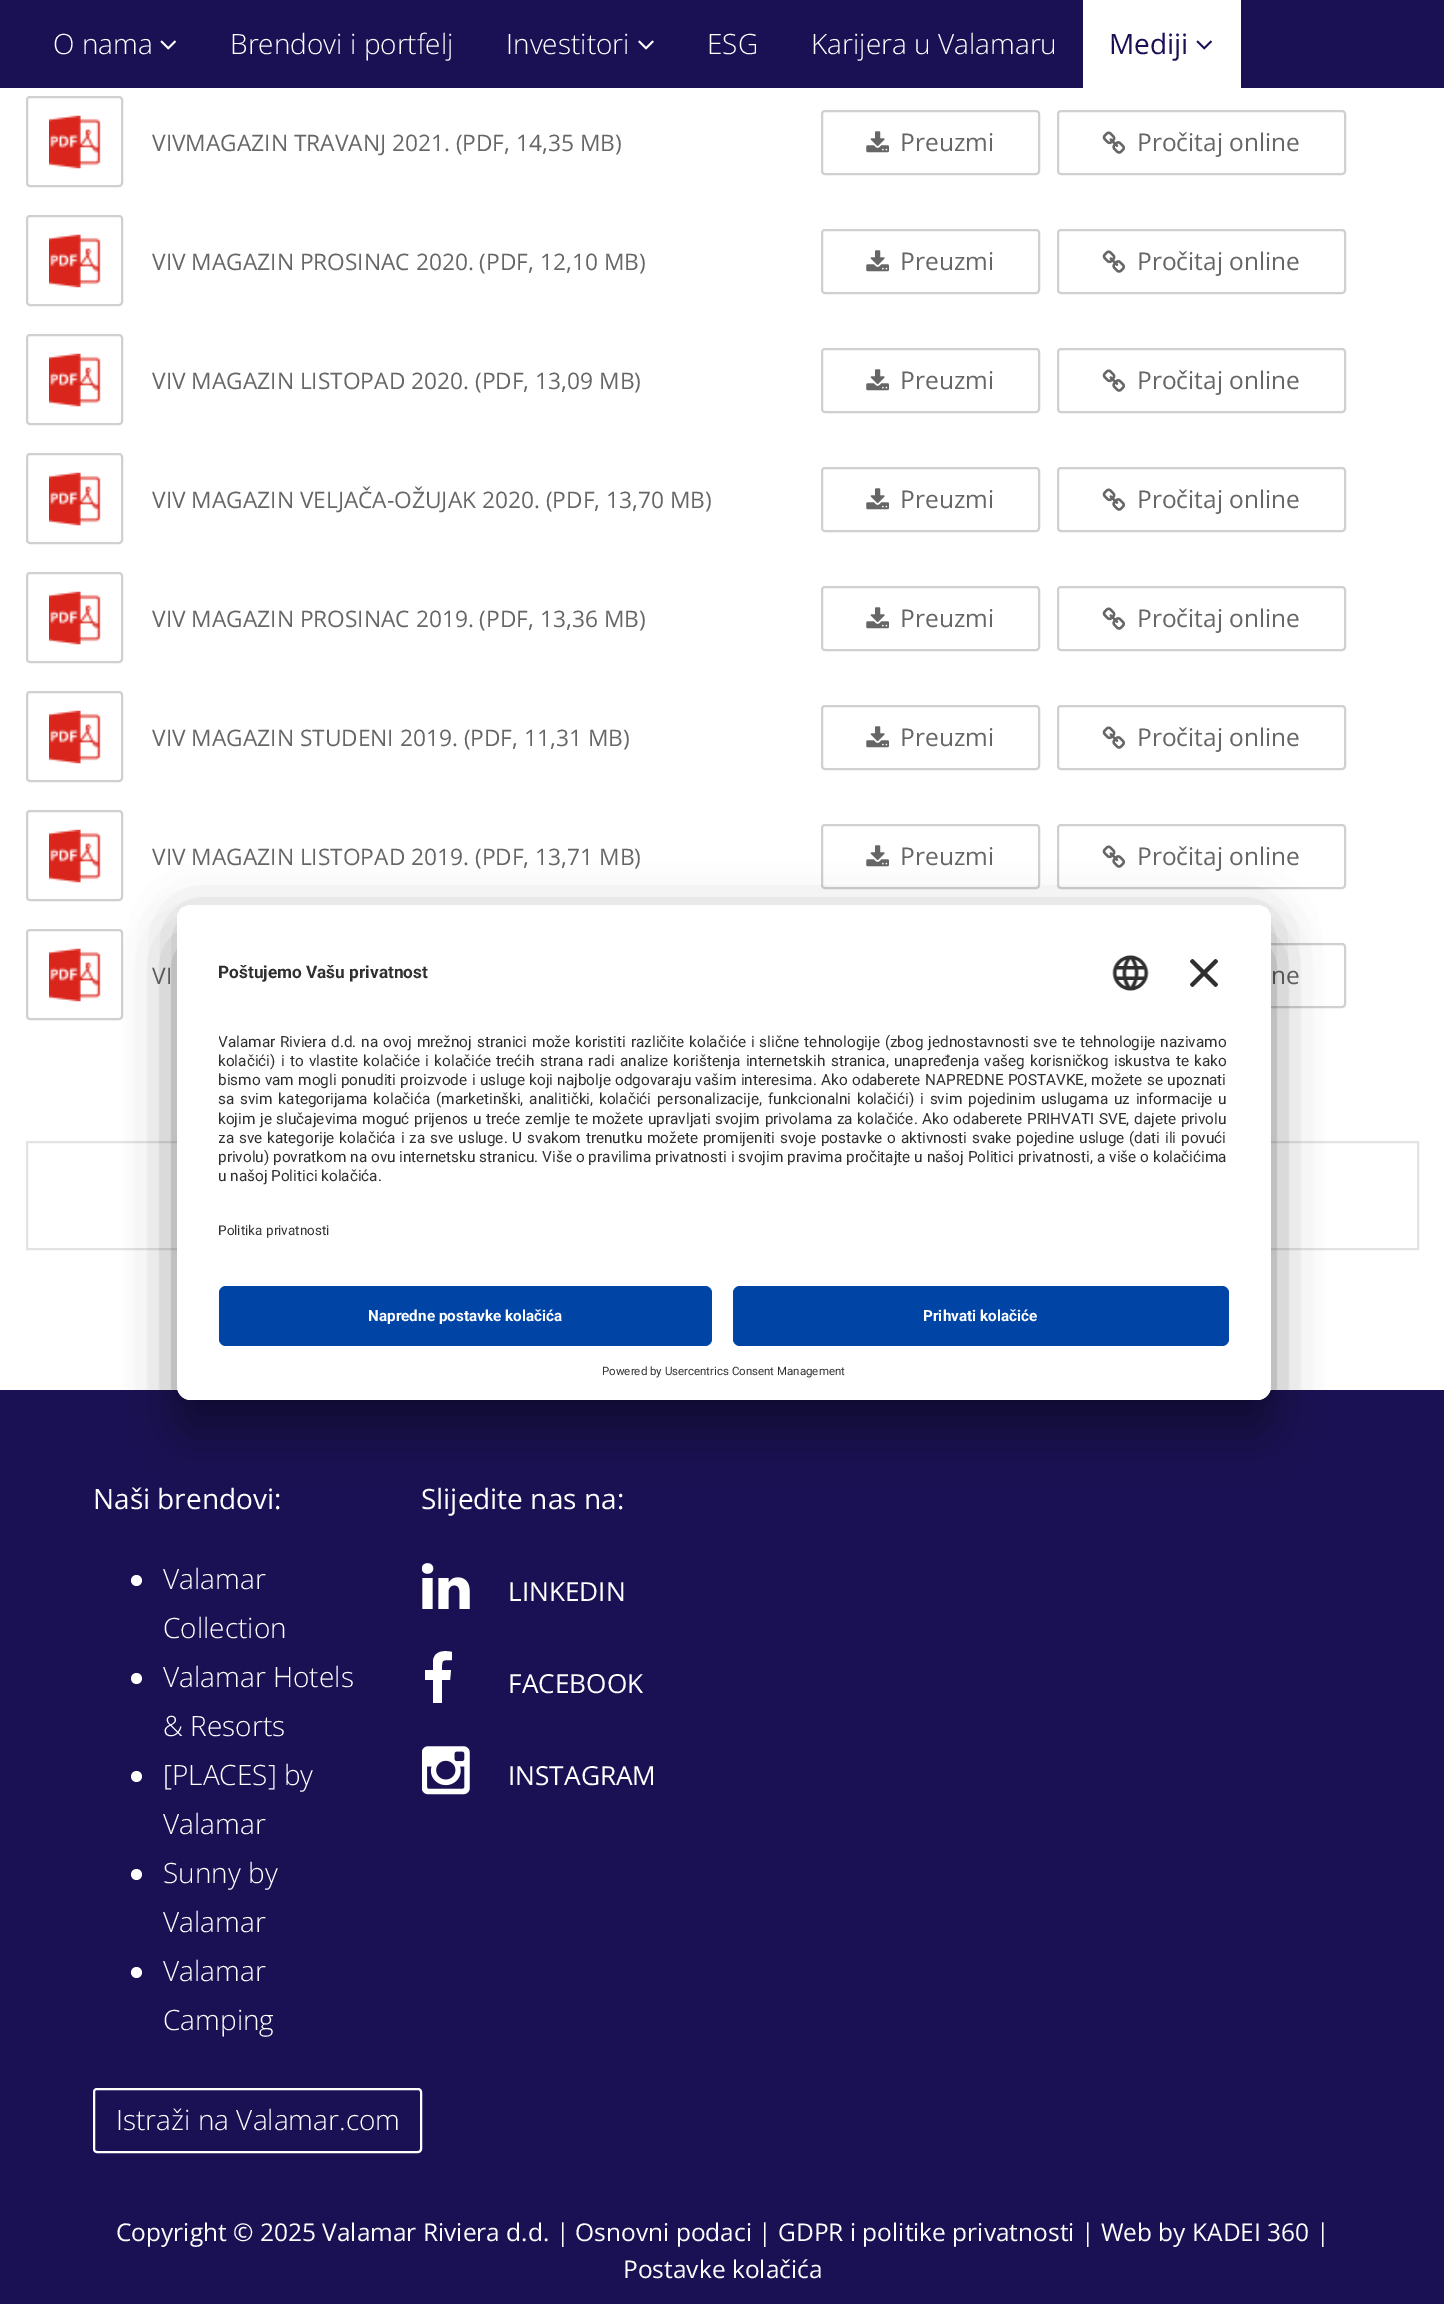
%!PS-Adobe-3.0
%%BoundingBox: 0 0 1444 2304
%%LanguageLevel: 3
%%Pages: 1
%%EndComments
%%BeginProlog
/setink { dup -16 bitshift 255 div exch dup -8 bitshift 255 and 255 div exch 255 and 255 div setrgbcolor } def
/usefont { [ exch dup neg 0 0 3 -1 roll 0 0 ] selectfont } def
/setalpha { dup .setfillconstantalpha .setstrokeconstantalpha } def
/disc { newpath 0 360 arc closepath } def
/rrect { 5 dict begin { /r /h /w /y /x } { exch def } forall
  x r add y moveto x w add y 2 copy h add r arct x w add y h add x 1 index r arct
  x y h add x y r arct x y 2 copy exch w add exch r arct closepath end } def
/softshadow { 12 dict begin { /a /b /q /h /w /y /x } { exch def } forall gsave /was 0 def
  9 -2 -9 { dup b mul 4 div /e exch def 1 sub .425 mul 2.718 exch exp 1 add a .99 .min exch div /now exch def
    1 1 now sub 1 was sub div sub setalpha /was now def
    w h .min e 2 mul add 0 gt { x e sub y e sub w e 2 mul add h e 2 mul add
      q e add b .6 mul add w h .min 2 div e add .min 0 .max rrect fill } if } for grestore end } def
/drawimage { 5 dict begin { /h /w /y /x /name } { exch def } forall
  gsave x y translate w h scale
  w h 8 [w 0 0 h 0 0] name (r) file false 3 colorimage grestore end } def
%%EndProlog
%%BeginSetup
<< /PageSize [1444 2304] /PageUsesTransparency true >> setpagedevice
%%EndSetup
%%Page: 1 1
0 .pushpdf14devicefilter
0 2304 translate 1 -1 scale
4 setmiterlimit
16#FFFFFF setink
0 0 1444 2304 rectfill
16#1A1154 setink
0 0 1444 88 rectfill
/OpenSans-Light 28 usefont
16#FFFFFF setink
53 54 moveto (O nama) show
(img1.raw) 160 40 16 10 drawimage
230 54 moveto (Brendovi i portfelj) show
506 54 moveto (Investitori) show
(img2.raw) 638 40 16 10 drawimage
707 54 moveto (ESG) show
811 54 moveto (Karijera u Valamaru) show
1083 0 158 88 rectfill
/OpenSans-Regular 28 usefont
16#1A1154 setink
1109 54 moveto (Mediji) show
(img3.raw) 1196 40 16 10 drawimage
16#D0D0D0 setink
2 setlinewidth
27 97 95 89 3 rrect stroke
(img4.raw) 49 115 52 54 drawimage
/OpenSans-Regular 22.75 usefont
16#666666 setink
152 151 moveto (VIVMAGAZIN TRAVANJ 2021. \(PDF, 14,35 MB\)) show
16#D0D0D0 setink
822 111 217 63 3 rrect stroke
(img5.raw) 866 131 23 22 drawimage
/OpenSans-Regular 24.5 usefont
16#666666 setink
900 151 moveto (Preuzmi) show
16#D0D0D0 setink
1058 111 287 63 3 rrect stroke
(img6.raw) 1102 131 23 23 drawimage
16#666666 setink
1137 151 moveto (Pročitaj online) show
16#D0D0D0 setink
27 216 95 89 3 rrect stroke
(img4.raw) 49 234 52 54 drawimage
/OpenSans-Regular 22.75 usefont
16#666666 setink
152 270 moveto (VIV MAGAZIN PROSINAC 2020. \(PDF, 12,10 MB\)) show
16#D0D0D0 setink
822 230 217 63 3 rrect stroke
(img5.raw) 866 250 23 22 drawimage
/OpenSans-Regular 24.5 usefont
16#666666 setink
900 270 moveto (Preuzmi) show
16#D0D0D0 setink
1058 230 287 63 3 rrect stroke
(img6.raw) 1102 250 23 23 drawimage
16#666666 setink
1137 270 moveto (Pročitaj online) show
16#D0D0D0 setink
27 335 95 89 3 rrect stroke
(img4.raw) 49 353 52 54 drawimage
/OpenSans-Regular 22.75 usefont
16#666666 setink
152 389 moveto (VIV MAGAZIN LISTOPAD 2020. \(PDF, 13,09 MB\)) show
16#D0D0D0 setink
822 349 217 63 3 rrect stroke
(img5.raw) 866 369 23 22 drawimage
/OpenSans-Regular 24.5 usefont
16#666666 setink
900 389 moveto (Preuzmi) show
16#D0D0D0 setink
1058 349 287 63 3 rrect stroke
(img6.raw) 1102 369 23 23 drawimage
16#666666 setink
1137 389 moveto (Pročitaj online) show
16#D0D0D0 setink
27 454 95 89 3 rrect stroke
(img4.raw) 49 472 52 54 drawimage
/OpenSans-Regular 22.75 usefont
16#666666 setink
152 508 moveto (VIV MAGAZIN VELJAČA-OŽUJAK 2020. \(PDF, 13,70 MB\)) show
16#D0D0D0 setink
822 468 217 63 3 rrect stroke
(img5.raw) 866 488 23 22 drawimage
/OpenSans-Regular 24.5 usefont
16#666666 setink
900 508 moveto (Preuzmi) show
16#D0D0D0 setink
1058 468 287 63 3 rrect stroke
(img6.raw) 1102 488 23 23 drawimage
16#666666 setink
1137 508 moveto (Pročitaj online) show
16#D0D0D0 setink
27 573 95 89 3 rrect stroke
(img4.raw) 49 591 52 54 drawimage
/OpenSans-Regular 22.75 usefont
16#666666 setink
152 627 moveto (VIV MAGAZIN PROSINAC 2019. \(PDF, 13,36 MB\)) show
16#D0D0D0 setink
822 587 217 63 3 rrect stroke
(img5.raw) 866 607 23 22 drawimage
/OpenSans-Regular 24.5 usefont
16#666666 setink
900 627 moveto (Preuzmi) show
16#D0D0D0 setink
1058 587 287 63 3 rrect stroke
(img6.raw) 1102 607 23 23 drawimage
16#666666 setink
1137 627 moveto (Pročitaj online) show
16#D0D0D0 setink
27 692 95 89 3 rrect stroke
(img4.raw) 49 710 52 54 drawimage
/OpenSans-Regular 22.75 usefont
16#666666 setink
152 746 moveto (VIV MAGAZIN STUDENI 2019. \(PDF, 11,31 MB\)) show
16#D0D0D0 setink
822 706 217 63 3 rrect stroke
(img5.raw) 866 726 23 22 drawimage
/OpenSans-Regular 24.5 usefont
16#666666 setink
900 746 moveto (Preuzmi) show
16#D0D0D0 setink
1058 706 287 63 3 rrect stroke
(img6.raw) 1102 726 23 23 drawimage
16#666666 setink
1137 746 moveto (Pročitaj online) show
16#D0D0D0 setink
27 811 95 89 3 rrect stroke
(img4.raw) 49 829 52 54 drawimage
/OpenSans-Regular 22.75 usefont
16#666666 setink
152 865 moveto (VIV MAGAZIN LISTOPAD 2019. \(PDF, 13,71 MB\)) show
16#D0D0D0 setink
822 825 217 63 3 rrect stroke
(img5.raw) 866 845 23 22 drawimage
/OpenSans-Regular 24.5 usefont
16#666666 setink
900 865 moveto (Preuzmi) show
16#D0D0D0 setink
1058 825 287 63 3 rrect stroke
(img6.raw) 1102 845 23 23 drawimage
16#666666 setink
1137 865 moveto (Pročitaj online) show
16#D0D0D0 setink
27 930 95 89 3 rrect stroke
(img4.raw) 49 948 52 54 drawimage
/OpenSans-Regular 22.75 usefont
16#666666 setink
152 984 moveto (VI) show
16#D0D0D0 setink
1058 944 287 63 3 rrect stroke
/OpenSans-Regular 24.5 usefont
16#666666 setink
1271 984 moveto (ne) show
16#E3E3E3 setink
27 1142 1391 107 rectstroke
16#1A1154 setink
0 1390 1444 914 rectfill
16#000000 setink
177 940 1094 495 14 24.5 0.3 softshadow
177 914 1094 495 14 23 0.22 softshadow
16#FFFFFF setink
177 905 1094 495 14 rrect fill
gsave
177 905 1094 495 14 rrect clip newpath
191 905 moveto 1257 905 lineto 1264.5 905 1271 911.5 1271 919 curveto 1271 1272 lineto 177 1272 lineto 177 919 lineto 177 911.5 183.5 905 191 905 curveto closepath clip newpath
177 907 1094 365 rectfill
grestore
/Roboto-Bold 17.25 usefont
16#303030 setink
218 978 moveto (Poštujemo Vašu privatnost) show
(img7.raw) 1112 955 37 36 drawimage
(img8.raw) 1190 959 28 28 drawimage
gsave
219 1012 1010 182 rectclip
/Roboto-Regular 15.3 usefont
218 1047 moveto 1.25 0 32 (Valamar Riviera d.d. na ovoj mrežnoj stranici može koristiti različite kolačiće i slične tehnologije \(zbog jednostavnosti sve te tehnologije nazivamo) widthshow
218 1066 moveto 1.6 0 32 (kolačići\) i to vlastite kolačiće i kolačiće trećih strana radi analize korištenja internetskih stranica, unapređenja vašeg korisničkog iskustva te kako) widthshow
218 1085 moveto 0.6 0 32 (bismo vam mogli ponuditi proizvode i usluge koji najbolje odgovaraju vašim interesima. Ako odaberete NAPREDNE POSTAVKE, možete se upoznati) widthshow
grestore
/Roboto-Regular 15.3 usefont
218 1104 moveto 2.1 0 32 (sa svim kategorijama kolačića \(marketinški, analitički, kolačići personalizacije, funkcionalni kolačići\) i svim pojedinim uslugama uz informacije u) widthshow
gsave
219 1012 1010 182 rectclip
218 1124 moveto 0.9 0 32 (kojim je slučajevima moguć prijenos u treće zemlje te možete upravljati svojim privolama za kolačiće. Ako odaberete PRIHVATI SVE, dajete privolu) widthshow
218 1143 moveto 1.1 0 32 (za sve kategorije kolačića i za sve usluge. U svakom trenutku možete promijeniti svoje postavke o aktivnosti svake pojedine usluge \(dati ili povući) widthshow
218 1162 moveto 0.15 0 32 (privolu\) povratkom na ovu internetsku stranicu. Više o pravilima privatnosti i svojim pravima pročitajte u našoj Politici privatnosti, a više o kolačićima) widthshow
218 1181 moveto (u našoj Politici kolačića.) show
grestore
/Roboto-Regular 13.5 usefont
218 1235 moveto (Politika privatnosti) show
16#FFFFFF setink
177 1272 moveto 1271 1272 lineto 1271 1386 lineto 1271 1393.5 1264.5 1400 1257 1400 curveto 191 1400 lineto 183.5 1400 177 1393.5 177 1386 curveto closepath fill
16#0045A5 setink
219 1286 493 60 7 rrect fill
/Roboto-Bold 15.3 usefont
16#FFFFFF setink
368 1321 moveto (Napredne postavke kolačića) show
16#0045A5 setink
733 1286 496 60 7 rrect fill
16#FFFFFF setink
923 1321 moveto (Prihvati kolačiće) show
/Roboto-Regular 11.5 usefont
16#303030 setink
602 1375 moveto (Powered by Usercentrics Consent Management) show
/OpenSans-Regular 28 usefont
16#FFFFFF setink
93 1509 moveto (Naši brendovi:) show
136.5 1580.5 5.5 disc fill
/OpenSans-Light 28 usefont
163 1589 moveto (Valamar) show
163 1638 moveto (Collection) show
136.5 1678.5 5.5 disc fill
163 1687 moveto (Valamar Hotels) show
163 1736 moveto (& Resorts) show
136.5 1776.5 5.5 disc fill
163 1785 moveto ([PLACES] by) show
163 1834 moveto (Valamar) show
136.5 1874.5 5.5 disc fill
163 1883 moveto (Sunny by) show
163 1932 moveto (Valamar) show
136.5 1972.5 5.5 disc fill
163 1981 moveto (Valamar) show
163 2030 moveto (Camping) show
94 2089 327 63 3 rrect stroke
116 2130 moveto (Istraži na Valamar.com) show
/OpenSans-Regular 28 usefont
421 1509 moveto (Slijedite nas na:) show
(img9.raw) 422 1563 48 46 drawimage
/OpenSans-Regular 26.25 usefont
508 1601 moveto (LINKEDIN) show
452 1652 moveto 452 1660 lineto 441 1660 442 1660 442 1670 curveto 451 1670 lineto 450 1680 lineto 442 1680 lineto 442 1703 lineto 433 1703 lineto 433 1680 lineto 425 1680 lineto 425 1670 lineto 433 1670 lineto 433 1661 lineto 434 1651 444 1650 452 1652 curveto closepath fill
508 1693 moveto (FACEBOOK) show
(img10.raw) 422 1746 48 49 drawimage
508 1785 moveto (INSTAGRAM) show
/OpenSans-Regular 24.5 usefont
116 2241 moveto (Copyright © 2025 Valamar Riviera d.d. | Osnovni podaci | GDPR i politike privatnosti | Web by KADEI 360 |) show
623 2278 moveto (Postavke kolačića) show
.poppdf14devicefilter showpage
%%EOF
